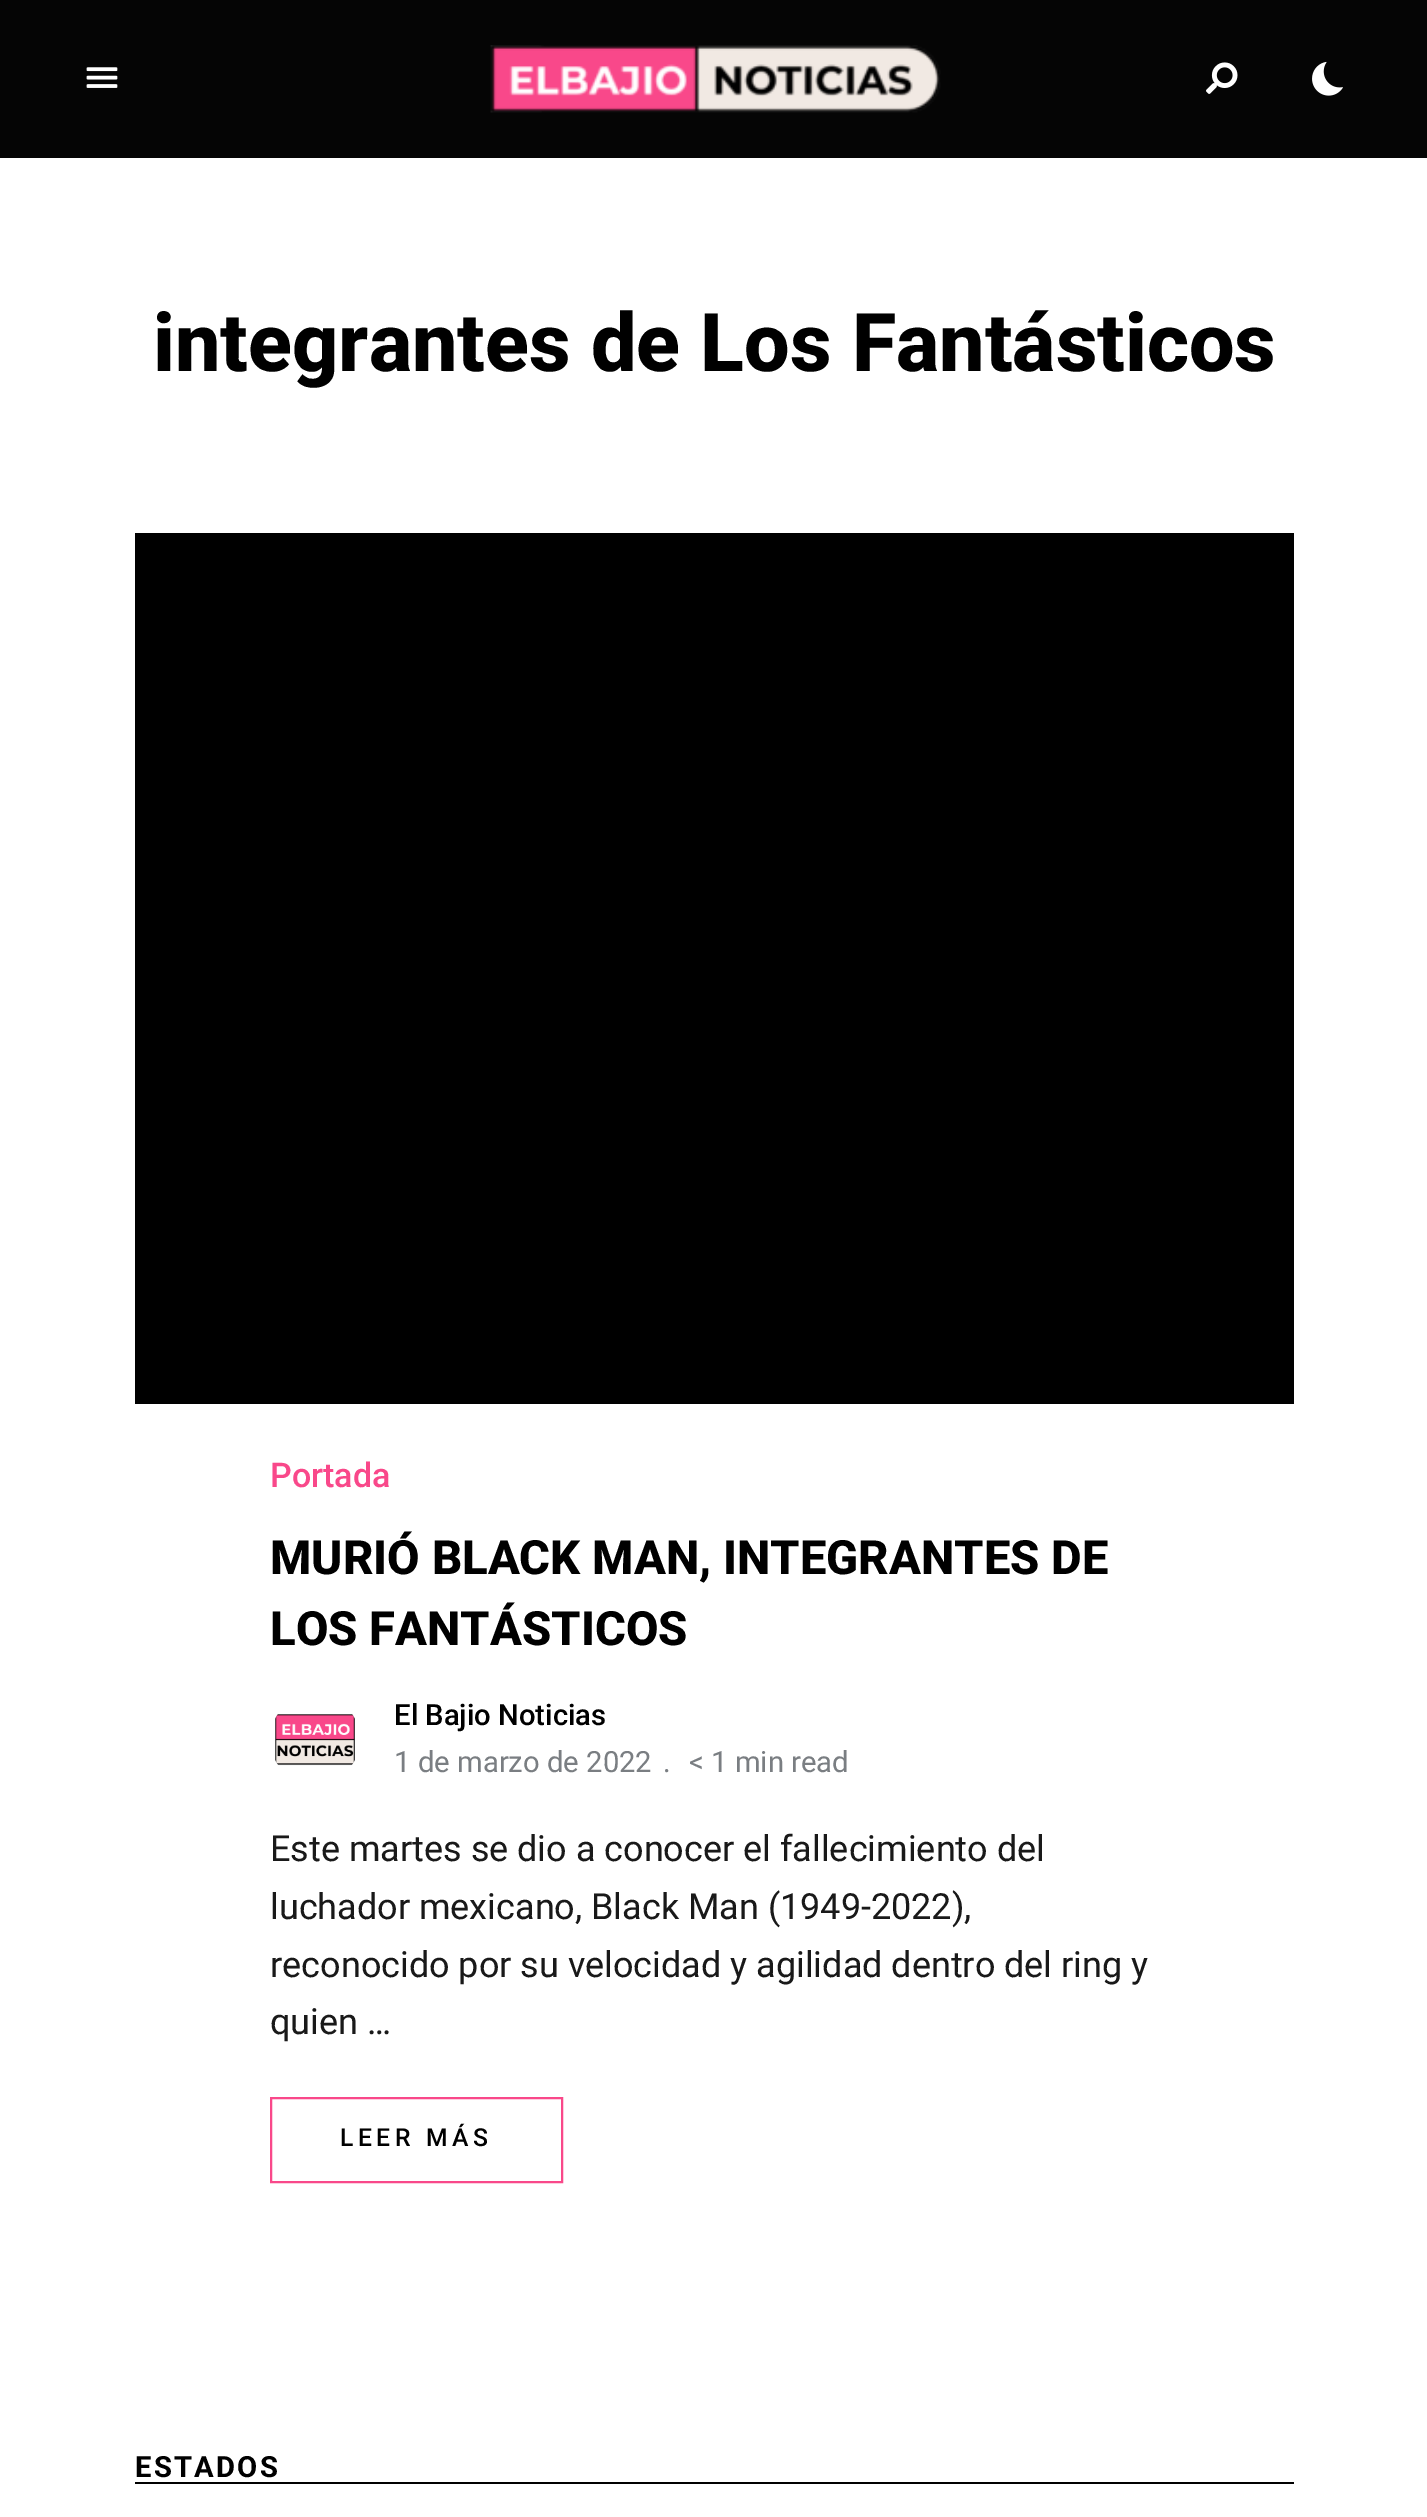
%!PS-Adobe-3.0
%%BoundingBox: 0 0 1427 2517
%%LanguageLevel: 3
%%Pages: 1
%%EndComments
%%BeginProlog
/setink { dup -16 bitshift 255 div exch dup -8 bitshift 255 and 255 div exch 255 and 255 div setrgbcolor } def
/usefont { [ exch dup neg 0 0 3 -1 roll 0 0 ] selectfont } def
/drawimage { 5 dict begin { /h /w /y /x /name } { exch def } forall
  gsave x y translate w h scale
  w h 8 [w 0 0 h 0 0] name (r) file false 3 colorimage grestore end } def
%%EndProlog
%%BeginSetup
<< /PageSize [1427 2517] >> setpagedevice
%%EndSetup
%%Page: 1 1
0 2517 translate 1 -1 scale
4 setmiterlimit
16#FFFFFF setink
0 0 1427 2517 rectfill
16#050505 setink
0 0 1427 158 rectfill
(img1.raw) 86 67 32 21 drawimage
(img2.raw) 490 45 451 68 drawimage
(img3.raw) 1206 62 32 32 drawimage
(img4.raw) 1312 61 31 35 drawimage
/Roboto-ExtraBold 81 usefont
16#000000 setink
153 371 moveto (integrantes de Los Fantásticos) show
135 533 1159 871 rectfill
/Roboto-Medium 34 usefont
16#F9488A setink
270 1487 moveto (Portada) show
/Roboto-ExtraBold 47.25 usefont
16#000000 setink
270 1574 moveto (MURIÓ BLACK MAN, INTEGRANTES DE) show
270 1645 moveto (LOS FANTÁSTICOS) show
(img5.raw) 275 1714 80 52 drawimage
/Roboto-Medium 29.25 usefont
394 1725 moveto (El Bajio Noticias) show
/Roboto-Regular 29.25 usefont
16#7A7E82 setink
[
    [(1 de marzo de 2022) 394 1772]
    [(.) 663 1772]
    [(< 1 min read) 689 1772]
] { aload pop moveto show } forall
/Roboto-Regular 36 usefont
16#191919 setink
[
    [(Este martes se dio a conocer el fallecimiento del) 270 1861]
    [(luchador mexicano, Black Man \(1949-2022\),) 270 1919]
    [(reconocido por su velocidad y agilidad dentro del ring y) 270 1977]
    [(quien …) 270 2034]
] { aload pop moveto show } forall
16#F9488A setink
2 setlinewidth
271 2098 291 84 rectstroke
/Roboto-Medium 24.75 usefont
16#000000 setink
340 2146 moveto 4.5 0 (LEER MÁS) ashow
135 2482 1159 2 rectfill
/Roboto-Bold 29.25 usefont
135 2477 moveto 2.25 0 (ESTADOS) ashow
showpage
%%EOF
